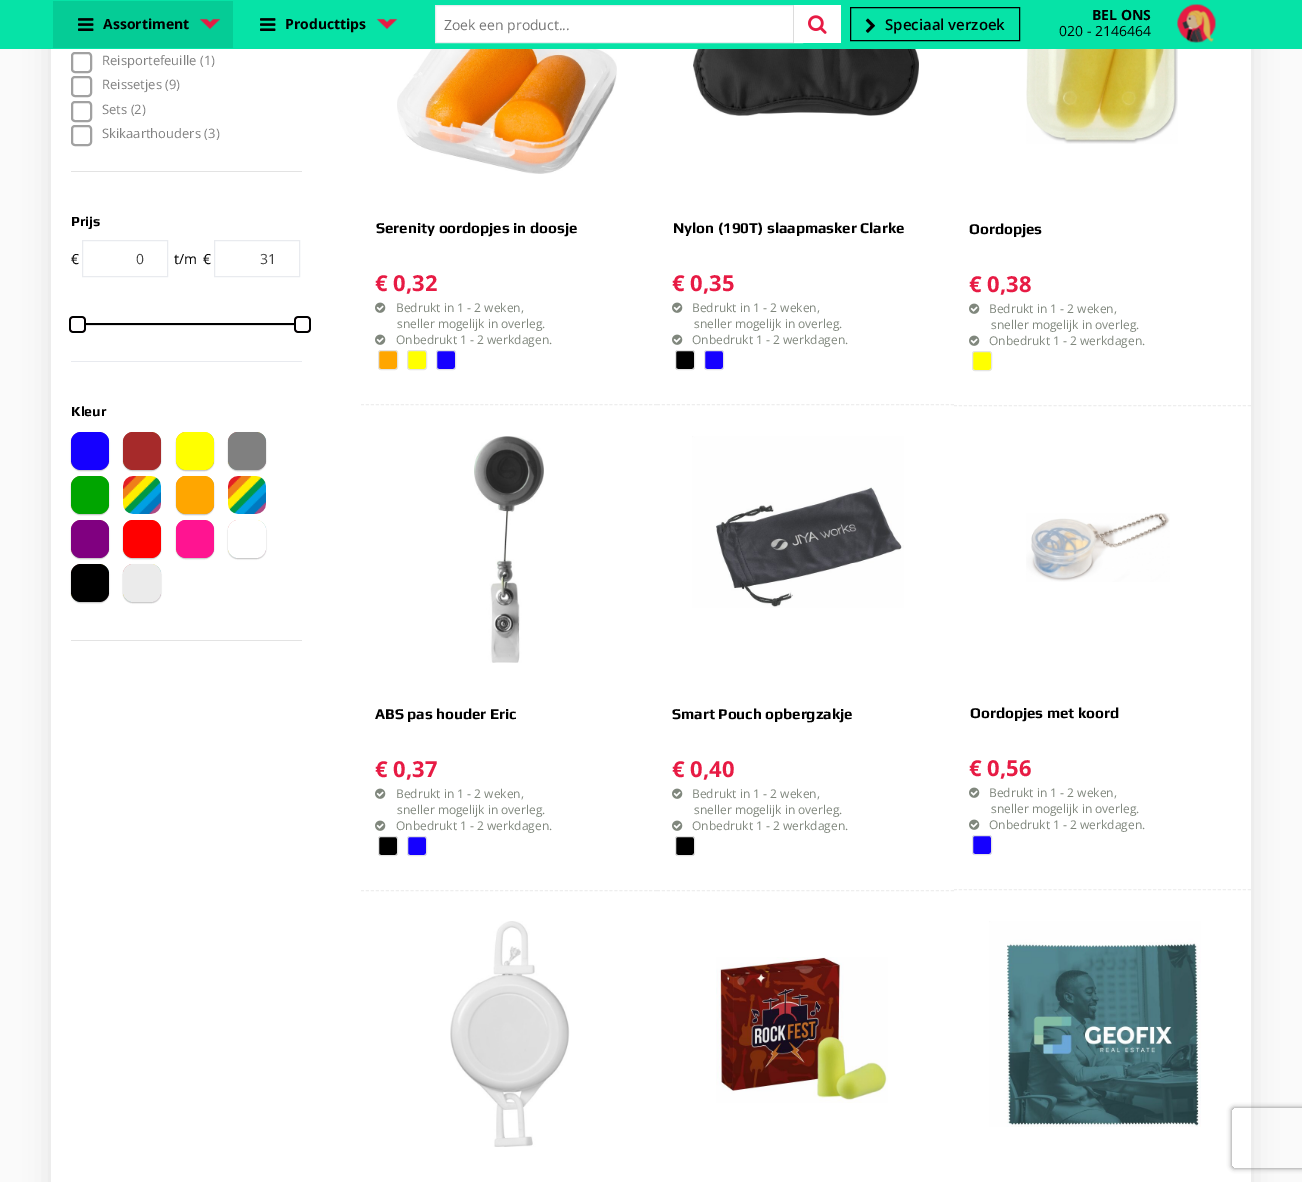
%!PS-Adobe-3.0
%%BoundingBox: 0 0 1302 1182
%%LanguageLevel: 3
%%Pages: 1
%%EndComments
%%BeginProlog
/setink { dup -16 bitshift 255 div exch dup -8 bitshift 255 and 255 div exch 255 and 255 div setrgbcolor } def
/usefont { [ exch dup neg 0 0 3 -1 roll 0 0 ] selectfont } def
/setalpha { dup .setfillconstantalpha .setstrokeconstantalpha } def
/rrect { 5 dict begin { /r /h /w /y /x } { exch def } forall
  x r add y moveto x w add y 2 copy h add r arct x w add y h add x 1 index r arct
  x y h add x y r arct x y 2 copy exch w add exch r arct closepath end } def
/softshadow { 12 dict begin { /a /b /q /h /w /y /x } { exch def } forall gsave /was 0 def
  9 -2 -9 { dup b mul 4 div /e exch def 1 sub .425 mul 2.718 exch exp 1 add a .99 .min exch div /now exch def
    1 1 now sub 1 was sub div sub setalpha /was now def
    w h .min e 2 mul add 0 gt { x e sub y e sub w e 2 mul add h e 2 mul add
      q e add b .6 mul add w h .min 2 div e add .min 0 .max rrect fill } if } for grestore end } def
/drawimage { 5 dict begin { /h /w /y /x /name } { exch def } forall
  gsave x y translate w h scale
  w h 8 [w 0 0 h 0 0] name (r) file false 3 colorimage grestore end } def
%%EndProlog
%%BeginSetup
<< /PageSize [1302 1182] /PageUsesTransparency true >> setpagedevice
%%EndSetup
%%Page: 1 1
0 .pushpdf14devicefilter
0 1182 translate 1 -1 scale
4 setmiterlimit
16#FAFAFA setink
0 0 1302 1182 rectfill
16#000000 setink
51 -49 1200 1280 10 13 0.1 softshadow
16#06E3A7 setink
0 0 1302 49 rectfill
16#05CC96 setink
53 1 180 47 rectfill
(img1.raw) 78 18 16 13 drawimage
/OpenSans-Bold 14 usefont
16#000000 setink
103 29 moveto (Assortiment) show
(img2.raw) 199 18 22 12 drawimage
(img3.raw) 260 18 16 13 drawimage
285 29 moveto (Producttips) show
(img4.raw) 376 18 22 12 drawimage
16#FFFFFF setink
436 6 357 36 rectfill
16#E9EBEF setink
435.5 5.5 367 37 rectstroke
/OpenSans-Regular 14 usefont
16#757575 setink
444 30 moveto (Zoek een product...) show
16#FFFFFF setink
794 5 47 38 rectfill
16#DCDCDC setink
793 5 1 38 rectfill
(img5.raw) 808 15 19 19 drawimage
16#000000 setink
850.5 7.5 169 33 rectstroke
(img6.raw) 865 18 10 15 drawimage
/OpenSans-SemiBold 15 usefont
885 30 moveto (Speciaal verzoek) show
/OpenSans-Bold 14 usefont
1092 20 moveto (BEL ONS) show
/OpenSans-Regular 14 usefont
1059 36 moveto (020 - 2146464) show
(img7.raw) 1177 4 39 39 drawimage
16#FFFFFF setink
51 49 1200 1133 rectfill
16#E3E3E3 setink
71 171 231 1 rectfill
16#A1A1A1 setink
2 setlinewidth
72 53 19 19 3 rrect stroke
/OpenSans-Regular 13 usefont
16#808080 setink
102 65 moveto (Reisportefeuille \(1\)) show
16#A1A1A1 setink
72 77 19 19 3 rrect stroke
16#808080 setink
102 89 moveto (Reissetjes \(9\)) show
16#A1A1A1 setink
72 102 19 19 3 rrect stroke
16#808080 setink
102 114 moveto (Sets \(2\)) show
16#A1A1A1 setink
72 126 19 19 3 rrect stroke
16#808080 setink
102 138 moveto (Skikaarthouders \(3\)) show
/Play-Bold 14 usefont
16#000000 setink
71 226 moveto (Prijs) show
/OpenSans-Regular 14 usefont
71 264 moveto (€) show
16#E9EBEF setink
1 setlinewidth
82.5 240.5 85 36 rectstroke
16#404040 setink
136 264 moveto (0) show
16#000000 setink
174 264 moveto (t/m) show
203 264 moveto (€) show
16#E9EBEF setink
214.5 240.5 85 36 rectstroke
16#404040 setink
260 264 moveto (31) show
16#000000 setink
82 323 219 2 rectfill
16#E3E3E3 setink
82 325 219 1 rectfill
(img8.raw) 69 316 17 17 drawimage
(img8.raw) 294 316 17 17 drawimage
16#E8EAEF setink
71 361 231 1 rectfill
/Play-Bold 14 usefont
16#000000 setink
71 416 moveto (Kleur) show
16#E3E3E3 setink
71 640 231 1 rectfill
(img9.raw) 71 432 38 38 drawimage
16#323232 setink
71 433 38 38 10 0.5 0.3 softshadow
16#1500FF setink
71 432 38 38 10 rrect fill
(img9.raw) 123 432 38 38 drawimage
16#323232 setink
123 433 38 38 10 0.5 0.3 softshadow
16#A62A2A setink
123 432 38 38 10 rrect fill
(img10.raw) 176 432 38 38 drawimage
16#323232 setink
176 433 38 38 10 0.5 0.3 softshadow
16#FFFF00 setink
176 432 38 38 10 rrect fill
(img11.raw) 228 432 38 38 drawimage
16#323232 setink
228 433 38 38 10 0.5 0.3 softshadow
16#808080 setink
228 432 38 38 10 rrect fill
(img9.raw) 71 476 38 38 drawimage
16#323232 setink
71 477 38 38 10 0.5 0.3 softshadow
16#00A500 setink
71 476 38 38 10 rrect fill
(img9.raw) 123 476 38 38 drawimage
(img10.raw) 176 476 38 38 drawimage
16#323232 setink
176 477 38 38 10 0.5 0.3 softshadow
16#FFA600 setink
176 476 38 38 10 rrect fill
(img11.raw) 228 476 38 38 drawimage
(img9.raw) 71 520 38 38 drawimage
16#323232 setink
71 521 38 38 10 0.5 0.3 softshadow
16#800080 setink
71 520 38 38 10 rrect fill
(img9.raw) 123 520 38 38 drawimage
16#323232 setink
123 521 38 38 10 0.5 0.3 softshadow
16#FF0000 setink
123 520 38 38 10 rrect fill
(img10.raw) 176 520 38 38 drawimage
16#323232 setink
176 521 38 38 10 0.5 0.3 softshadow
16#FF1491 setink
176 520 38 38 10 rrect fill
(img11.raw) 228 520 38 38 drawimage
16#323232 setink
228 521 38 38 10 0.5 0.3 softshadow
16#FFFFFF setink
228 520 38 38 10 rrect fill
(img9.raw) 71 564 38 38 drawimage
16#323232 setink
71 565 38 38 10 0.5 0.3 softshadow
16#000000 setink
71 564 38 38 10 rrect fill
(img9.raw) 123 564 38 38 drawimage
16#323232 setink
123 565 38 38 10 0.5 0.3 softshadow
16#EBEBEB setink
123 564 38 38 10 rrect fill
16#EEEEEE setink
[3 1.97] 0 setdash
361 404.5 moveto 657 404.5 lineto stroke
(img12.raw) 397 49 226 125 drawimage
/Play-Bold 15 usefont
16#000000 setink
376 233 moveto (Serenity oordopjes in doosje) show
/OpenSans-Bold 22 usefont
16#E71B44 setink
375 291 moveto (€ 0,32) show
(img13.raw) 375 302 11 11 drawimage
/OpenSans-Regular 12 usefont
16#80877D setink
396 312 moveto (Bedrukt in 1 - 2 weken,) show
397 328 moveto (sneller mogelijk in overleg.) show
(img13.raw) 375 334 11 11 drawimage
396 344 moveto (Onbedrukt 1 - 2 werkdagen.) show
16#FFA600 setink
378.5 350.5 19 19 2.5 rrect gsave fill grestore
16#E4E4E4 setink
[] 0 setdash
stroke
16#FFFF00 setink
407.5 350.5 19 19 2.5 rrect gsave fill grestore
16#E4E4E4 setink
stroke
16#1500FF setink
436.5 350.5 19 19 2.5 rrect gsave fill grestore
16#E4E4E4 setink
stroke
16#EEEEEE setink
[3 1.98] 0 setdash
657 404.5 moveto 954 404.5 lineto stroke
(img14.raw) 693 49 226 67 drawimage
/Play-Bold 15 usefont
16#000000 setink
673 233 moveto (Nylon \(190T\) slaapmasker Clarke) show
/OpenSans-Bold 22 usefont
16#E71B44 setink
672 291 moveto (€ 0,35) show
(img13.raw) 672 302 11 11 drawimage
/OpenSans-Regular 12 usefont
16#80877D setink
692 312 moveto (Bedrukt in 1 - 2 weken,) show
694 328 moveto (sneller mogelijk in overleg.) show
(img13.raw) 672 334 11 11 drawimage
692 344 moveto (Onbedrukt 1 - 2 werkdagen.) show
16#000000 setink
675.5 350.5 19 19 2.5 rrect gsave fill grestore
16#E4E4E4 setink
[] 0 setdash
stroke
16#1500FF setink
704.5 350.5 19 19 2.5 rrect gsave fill grestore
16#E4E4E4 setink
stroke
16#EEEEEE setink
[3 1.98] 0 setdash
954 405.5 moveto 1251 405.5 lineto stroke
(img15.raw) 1026 49 152 95 drawimage
/Play-Bold 15 usefont
16#000000 setink
969 234 moveto (Oordopjes) show
/OpenSans-Bold 22 usefont
16#E71B44 setink
969 292 moveto (€ 0,38) show
(img13.raw) 969 303 11 11 drawimage
/OpenSans-Regular 12 usefont
16#80877D setink
989 313 moveto (Bedrukt in 1 - 2 weken,) show
991 329 moveto (sneller mogelijk in overleg.) show
(img13.raw) 969 335 11 11 drawimage
989 345 moveto (Onbedrukt 1 - 2 werkdagen.) show
16#FFFF00 setink
972.5 351.5 19 19 2.5 rrect gsave fill grestore
16#E4E4E4 setink
[] 0 setdash
stroke
16#EEEEEE setink
[3 1.97] 0 setdash
361 890.5 moveto 657 890.5 lineto stroke
(img16.raw) 474 436 70 227 drawimage
/Play-Bold 15 usefont
16#000000 setink
375 719 moveto (ABS pas houder Eric) show
/OpenSans-Bold 22 usefont
16#E71B44 setink
375 777 moveto (€ 0,37) show
(img13.raw) 375 788 11 11 drawimage
/OpenSans-Regular 12 usefont
16#80877D setink
396 798 moveto (Bedrukt in 1 - 2 weken,) show
397 814 moveto (sneller mogelijk in overleg.) show
(img13.raw) 375 820 11 11 drawimage
396 830 moveto (Onbedrukt 1 - 2 werkdagen.) show
16#000000 setink
378.5 836.5 19 19 2.5 rrect gsave fill grestore
16#E4E4E4 setink
[] 0 setdash
stroke
16#1500FF setink
407.5 836.5 19 19 2.5 rrect gsave fill grestore
16#E4E4E4 setink
stroke
16#EEEEEE setink
[3 1.98] 0 setdash
657 890.5 moveto 954 890.5 lineto stroke
(img17.raw) 692 436 212 172 drawimage
/Play-Bold 15 usefont
16#000000 setink
672 719 moveto (Smart Pouch opbergzakje) show
/OpenSans-Bold 22 usefont
16#E71B44 setink
672 777 moveto (€ 0,40) show
(img13.raw) 672 788 11 11 drawimage
/OpenSans-Regular 12 usefont
16#80877D setink
692 798 moveto (Bedrukt in 1 - 2 weken,) show
694 814 moveto (sneller mogelijk in overleg.) show
(img13.raw) 672 820 11 11 drawimage
692 830 moveto (Onbedrukt 1 - 2 werkdagen.) show
16#000000 setink
675.5 836.5 19 19 2.5 rrect gsave fill grestore
16#E4E4E4 setink
[] 0 setdash
stroke
16#EEEEEE setink
[3 1.98] 0 setdash
954 889.5 moveto 1251 889.5 lineto stroke
(img18.raw) 1026 513 144 69 drawimage
/Play-Bold 15 usefont
16#000000 setink
970 718 moveto (Oordopjes met koord) show
/OpenSans-Bold 22 usefont
16#E71B44 setink
969 776 moveto (€ 0,56) show
(img13.raw) 969 787 11 11 drawimage
/OpenSans-Regular 12 usefont
16#80877D setink
989 797 moveto (Bedrukt in 1 - 2 weken,) show
991 813 moveto (sneller mogelijk in overleg.) show
(img13.raw) 969 819 11 11 drawimage
989 829 moveto (Onbedrukt 1 - 2 werkdagen.) show
16#1500FF setink
972.5 835.5 19 19 2.5 rrect gsave fill grestore
16#E4E4E4 setink
[] 0 setdash
stroke
(img19.raw) 450 921 120 226 drawimage
(img20.raw) 716 957 172 146 drawimage
(img21.raw) 989 921 212 206 drawimage
gsave
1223 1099 moveto 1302 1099 lineto 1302 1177 lineto 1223 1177 lineto closepath 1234 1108 moveto 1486 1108 lineto 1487 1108 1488 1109 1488 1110 curveto 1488 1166 lineto 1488 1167 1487 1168 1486 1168 curveto 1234 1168 lineto 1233 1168 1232 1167 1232 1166 curveto 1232 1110 lineto 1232 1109 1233 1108 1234 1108 curveto closepath eoclip newpath
16#808080 setink
1232 1108 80 60 2 2.5 1 softshadow
grestore
.poppdf14devicefilter showpage
%%EOF
